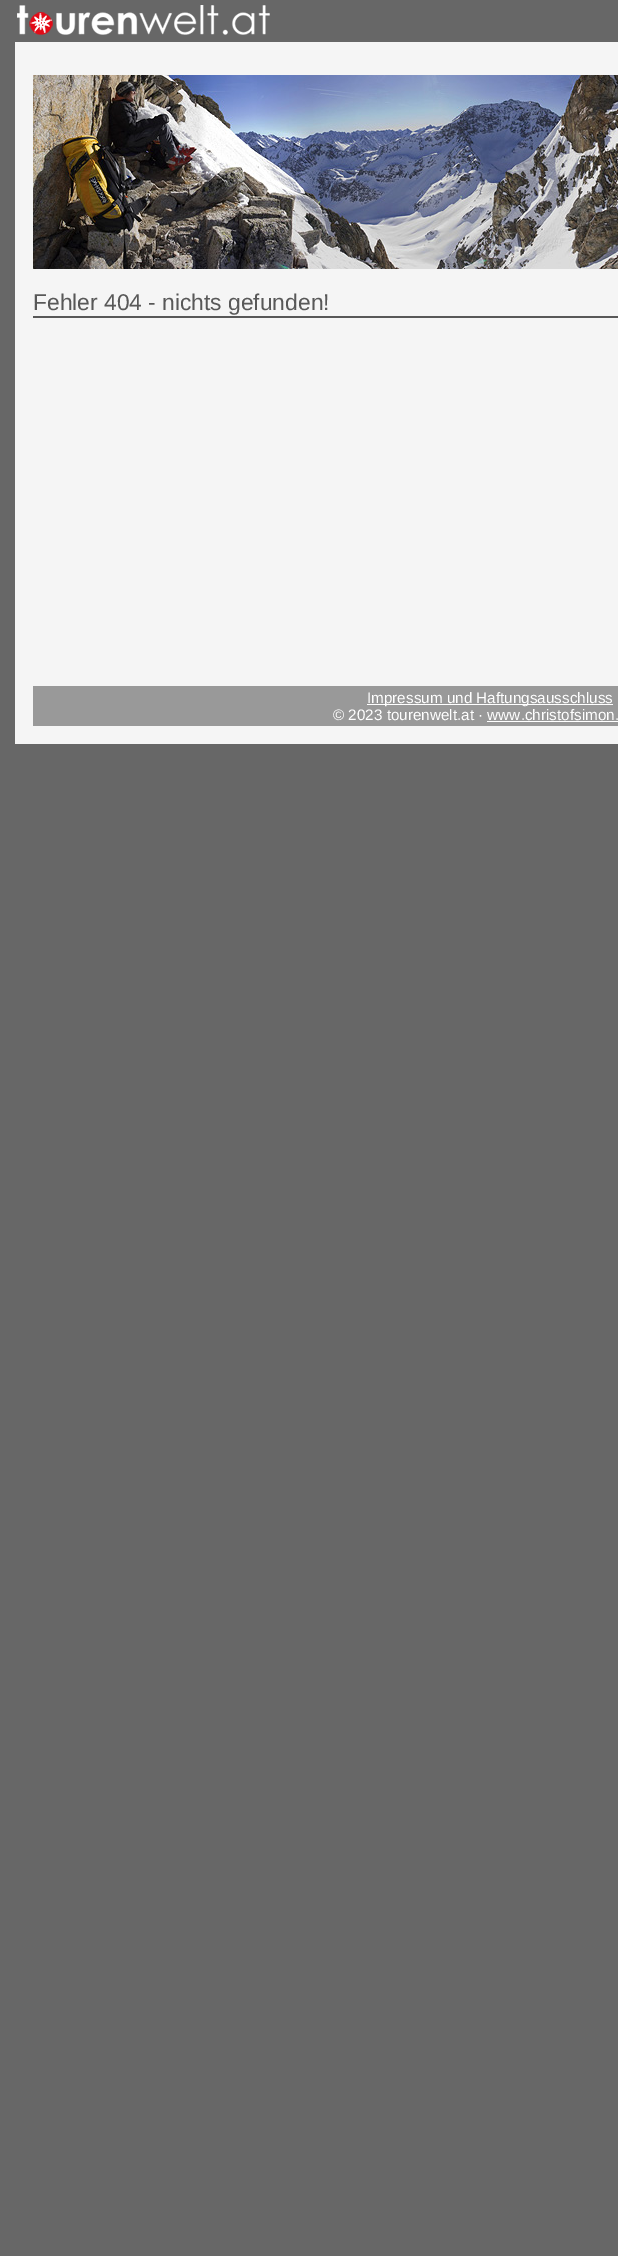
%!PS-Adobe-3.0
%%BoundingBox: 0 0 618 2256
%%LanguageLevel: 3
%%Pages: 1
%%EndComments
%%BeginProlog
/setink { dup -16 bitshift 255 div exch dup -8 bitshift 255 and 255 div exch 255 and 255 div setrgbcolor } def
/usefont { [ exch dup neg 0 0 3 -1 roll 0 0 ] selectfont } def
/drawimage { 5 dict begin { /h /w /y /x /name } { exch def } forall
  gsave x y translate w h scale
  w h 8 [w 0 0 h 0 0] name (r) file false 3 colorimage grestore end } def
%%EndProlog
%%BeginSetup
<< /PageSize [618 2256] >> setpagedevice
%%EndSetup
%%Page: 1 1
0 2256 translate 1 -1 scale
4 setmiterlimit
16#676767 setink
0 0 618 2256 rectfill
(img1.raw) 17 5 253 30 drawimage
16#F5F5F5 setink
15 42 603 702 rectfill
(img2.raw) 33 75 585 194 drawimage
16#585858 setink
33 316 585 2 rectfill
/LiberationSans-Regular 22.8 usefont
33 310 moveto (Fehler 404 - nichts gefunden!) show
16#999999 setink
33 686 585 40 rectfill
16#FFFFFF setink
367 704 246 1 rectfill
/LiberationSans-Regular 15.25 usefont
367 703 moveto (Impressum und Haftungsausschluss) show
333 720 moveto (© 2023 tourenwelt.at · www.christofsimon.) show
487 721 131 1 rectfill
showpage
%%EOF
